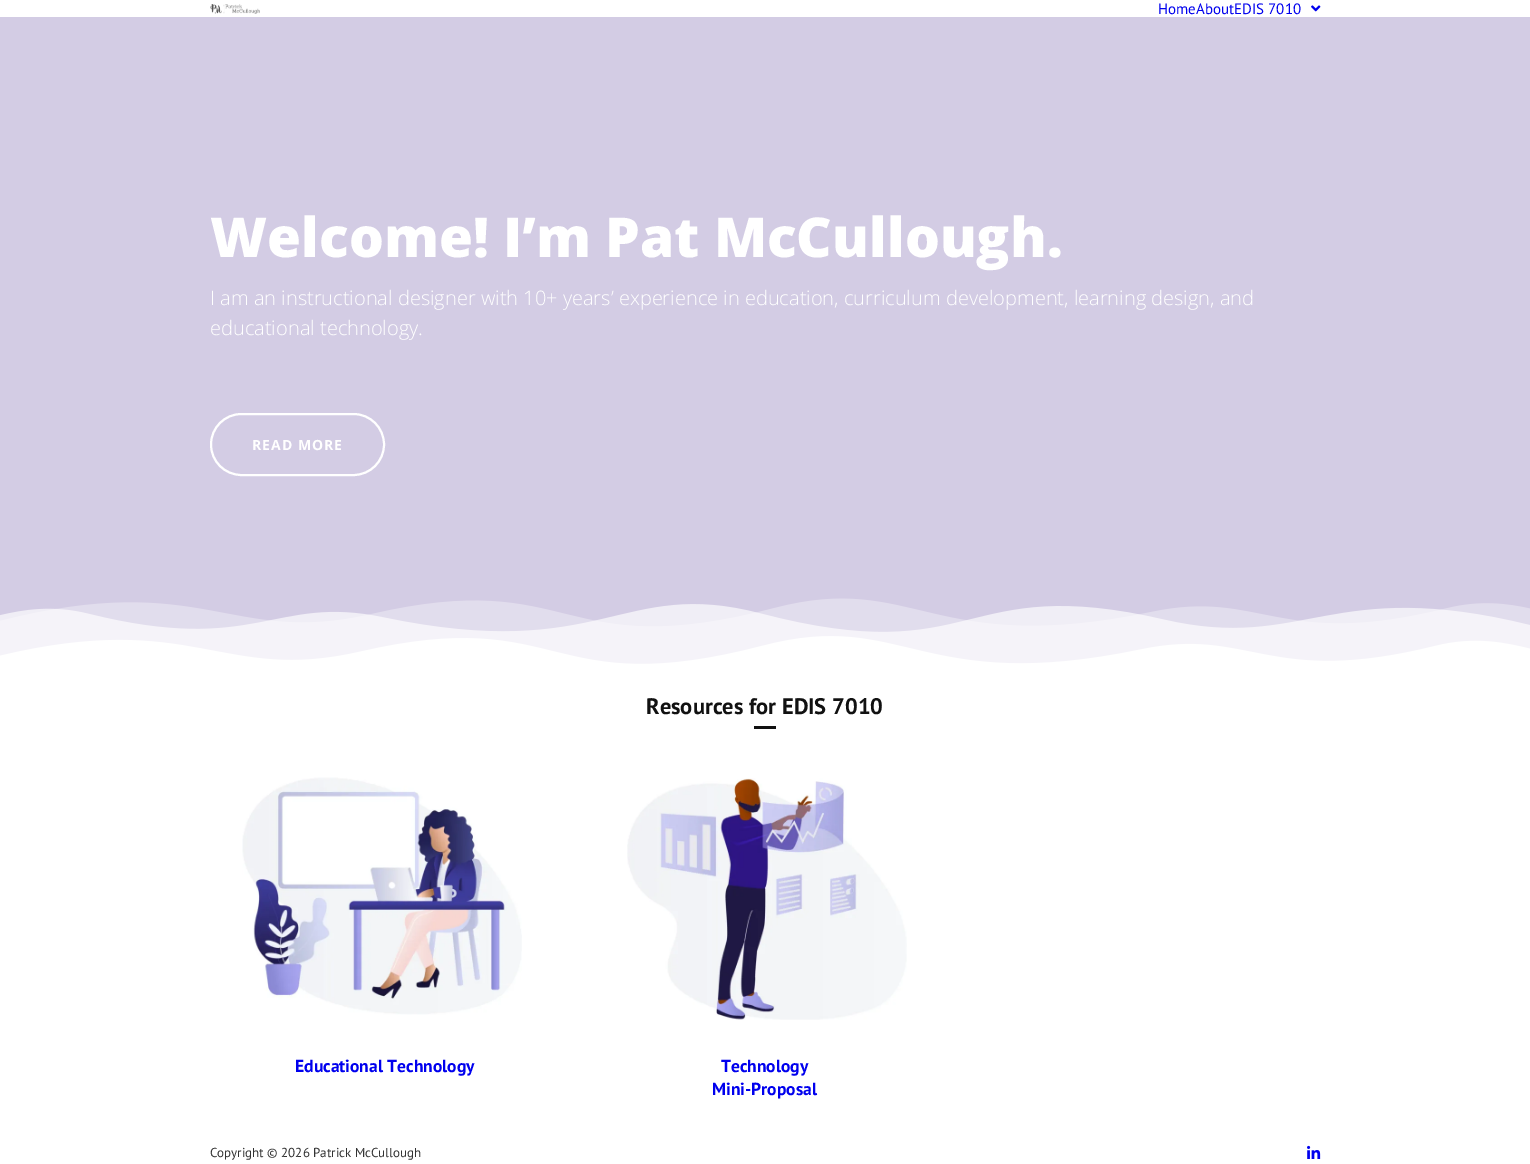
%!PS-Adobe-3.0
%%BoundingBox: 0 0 1530 1164
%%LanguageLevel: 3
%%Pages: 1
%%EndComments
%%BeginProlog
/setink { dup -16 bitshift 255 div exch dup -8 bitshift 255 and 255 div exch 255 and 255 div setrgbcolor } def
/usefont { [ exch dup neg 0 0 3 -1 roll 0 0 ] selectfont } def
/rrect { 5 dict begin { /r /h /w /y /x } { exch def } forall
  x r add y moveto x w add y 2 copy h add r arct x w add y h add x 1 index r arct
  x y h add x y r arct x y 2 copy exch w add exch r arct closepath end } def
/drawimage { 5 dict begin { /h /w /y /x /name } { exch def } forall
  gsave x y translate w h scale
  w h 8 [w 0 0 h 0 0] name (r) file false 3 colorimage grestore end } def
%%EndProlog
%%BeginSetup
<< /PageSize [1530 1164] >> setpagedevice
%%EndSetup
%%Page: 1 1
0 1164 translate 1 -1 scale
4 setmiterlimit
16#FFFFFF setink
0 0 1530 1164 rectfill
(img1.raw) 210 4 50 10 drawimage
/PTSans-Regular 15 usefont
16#0000EE setink
1158 14 moveto (HomeAboutEDIS 7010) show
(img2.raw) 1311 5 10 7 drawimage
16#D3CCE4 setink
0 17 1530 647 rectfill
/OpenSans-ExtraBold 55 usefont
16#FFFFFF setink
210 257 moveto (Welcome! I’m Pat McCullough.) show
/OpenSans-Light 20 usefont
210 305 moveto (I am an instructional designer with 10+ years’ experience in education, curriculum development, learning design, and) show
210 335 moveto (educational technology.) show
2 setlinewidth
211 414 173 61 30.5 rrect stroke
/OpenSans-Bold 14 usefont
252 450 moveto 1 0 (READ MORE) ashow
(img3.raw) 0 598 1530 69 drawimage
/PTSans-Bold 22.5 usefont
16#111111 setink
646 714 moveto (Resources for EDIS 7010) show
754 726 22 3 rectfill
(img4.raw) 242 777 280 238 drawimage
/PTSans-Bold 17.5 usefont
16#0000EE setink
295 1072 moveto (Educational Technology) show
(img5.raw) 627 778 280 242 drawimage
721 1072 moveto (Technology) show
712 1095 moveto (Mini-Proposal) show
/PTSans-Regular 13 usefont
16#333333 setink
210 1157 moveto (Copyright © 2026 Patrick McCullough) show
(img6.raw) 1307 1145 14 14 drawimage
showpage
%%EOF
